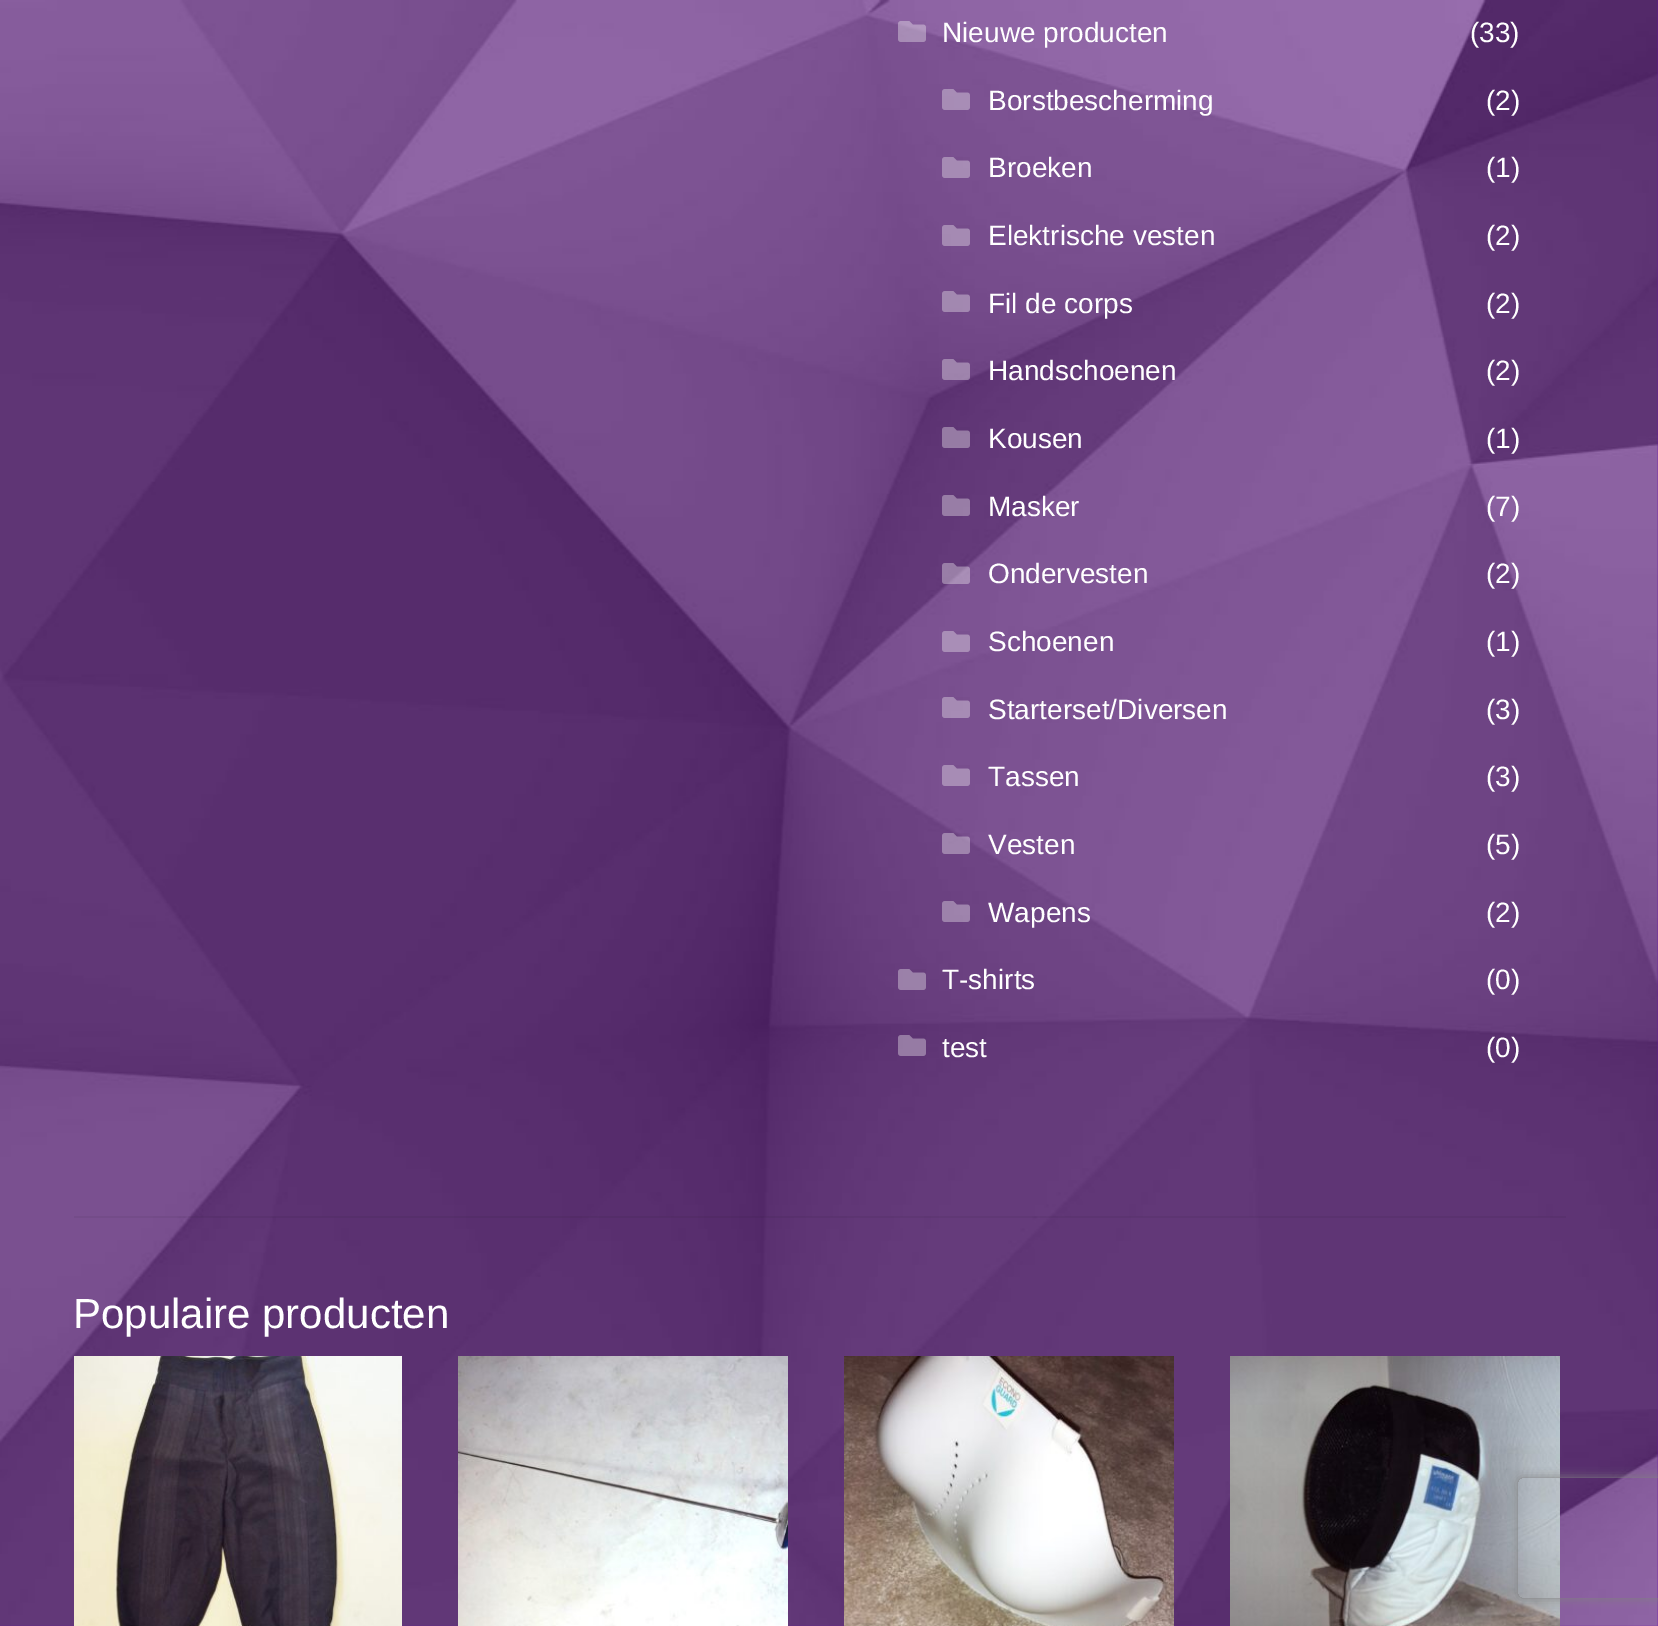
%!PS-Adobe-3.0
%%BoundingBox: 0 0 1658 1626
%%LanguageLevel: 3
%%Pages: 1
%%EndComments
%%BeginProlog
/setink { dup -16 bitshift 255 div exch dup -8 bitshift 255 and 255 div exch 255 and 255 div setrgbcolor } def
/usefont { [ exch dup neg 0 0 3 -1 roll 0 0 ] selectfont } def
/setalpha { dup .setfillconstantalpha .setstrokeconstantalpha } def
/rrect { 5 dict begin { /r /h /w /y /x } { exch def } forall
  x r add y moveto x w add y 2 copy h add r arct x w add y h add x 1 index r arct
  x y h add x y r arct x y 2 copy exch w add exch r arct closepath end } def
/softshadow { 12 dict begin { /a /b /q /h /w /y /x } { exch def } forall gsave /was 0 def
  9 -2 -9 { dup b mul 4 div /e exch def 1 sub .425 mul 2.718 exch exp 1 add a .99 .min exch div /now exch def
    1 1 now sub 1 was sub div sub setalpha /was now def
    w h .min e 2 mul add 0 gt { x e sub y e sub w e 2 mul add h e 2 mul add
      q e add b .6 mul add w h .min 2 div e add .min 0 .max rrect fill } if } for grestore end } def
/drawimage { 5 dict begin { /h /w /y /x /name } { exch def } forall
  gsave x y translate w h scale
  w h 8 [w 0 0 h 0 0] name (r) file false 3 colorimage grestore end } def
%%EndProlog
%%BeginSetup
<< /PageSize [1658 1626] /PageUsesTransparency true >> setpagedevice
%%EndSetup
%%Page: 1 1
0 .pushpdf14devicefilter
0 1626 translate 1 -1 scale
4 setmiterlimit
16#730CAA setink
0 0 1658 1626 rectfill
(img1.raw) 0 0 1658 1626 drawimage
0.05 setalpha
16#000000 setink
74 1216 1492 2 rectfill
1 setalpha
(img2.raw) 898 21 28 21 drawimage
/LiberationSans-Regular 28 usefont
16#FFFFFF setink
942 42 moveto (Nieuwe producten) show
1470 42 moveto (\(33\)) show
(img3.raw) 942 89 28 21 drawimage
988 110 moveto (Borstbescherming) show
1486 110 moveto (\(2\)) show
(img4.raw) 942 157 28 21 drawimage
988 177 moveto (Broeken) show
1486 177 moveto (\(1\)) show
(img5.raw) 942 225 28 21 drawimage
988 245 moveto (Elektrische vesten) show
1486 245 moveto (\(2\)) show
(img6.raw) 942 291 28 21 drawimage
988 313 moveto (Fil de corps) show
1486 313 moveto (\(2\)) show
(img7.raw) 942 359 28 21 drawimage
988 380 moveto (Handschoenen) show
1486 380 moveto (\(2\)) show
(img8.raw) 942 427 28 21 drawimage
988 448 moveto (Kousen) show
1486 448 moveto (\(1\)) show
(img9.raw) 942 495 28 21 drawimage
988 516 moveto (Masker) show
1486 516 moveto (\(7\)) show
(img10.raw) 942 563 28 21 drawimage
988 583 moveto (Ondervesten) show
1486 583 moveto (\(2\)) show
(img11.raw) 942 631 28 21 drawimage
988 651 moveto (Schoenen) show
1486 651 moveto (\(1\)) show
(img12.raw) 942 697 28 21 drawimage
988 719 moveto (Starterset/Diversen) show
1486 719 moveto (\(3\)) show
(img13.raw) 942 765 28 21 drawimage
988 786 moveto (Tassen) show
1486 786 moveto (\(3\)) show
(img14.raw) 942 833 28 21 drawimage
988 854 moveto (Vesten) show
1486 854 moveto (\(5\)) show
(img15.raw) 942 901 28 21 drawimage
988 922 moveto (Wapens) show
1486 922 moveto (\(2\)) show
(img16.raw) 898 969 28 21 drawimage
942 989 moveto (T-shirts) show
1486 989 moveto (\(0\)) show
(img17.raw) 898 1035 28 21 drawimage
942 1057 moveto (test) show
1486 1057 moveto (\(0\)) show
/LiberationSans-Regular 42 usefont
73 1328 moveto (Populaire producten) show
(img18.raw) 74 1356 328 270 drawimage
(img19.raw) 458 1356 330 270 drawimage
(img20.raw) 844 1356 330 270 drawimage
(img21.raw) 1230 1356 330 270 drawimage
gsave
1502 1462 moveto 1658 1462 lineto 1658 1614 lineto 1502 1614 lineto closepath 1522 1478 moveto 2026 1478 lineto 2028 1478 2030 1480 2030 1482 curveto 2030 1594 lineto 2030 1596 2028 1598 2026 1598 curveto 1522 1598 lineto 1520 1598 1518 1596 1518 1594 curveto 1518 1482 lineto 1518 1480 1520 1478 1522 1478 curveto closepath eoclip newpath
16#808080 setink
1518 1478 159 120 4 5 1 softshadow
grestore
.poppdf14devicefilter showpage
%%EOF
